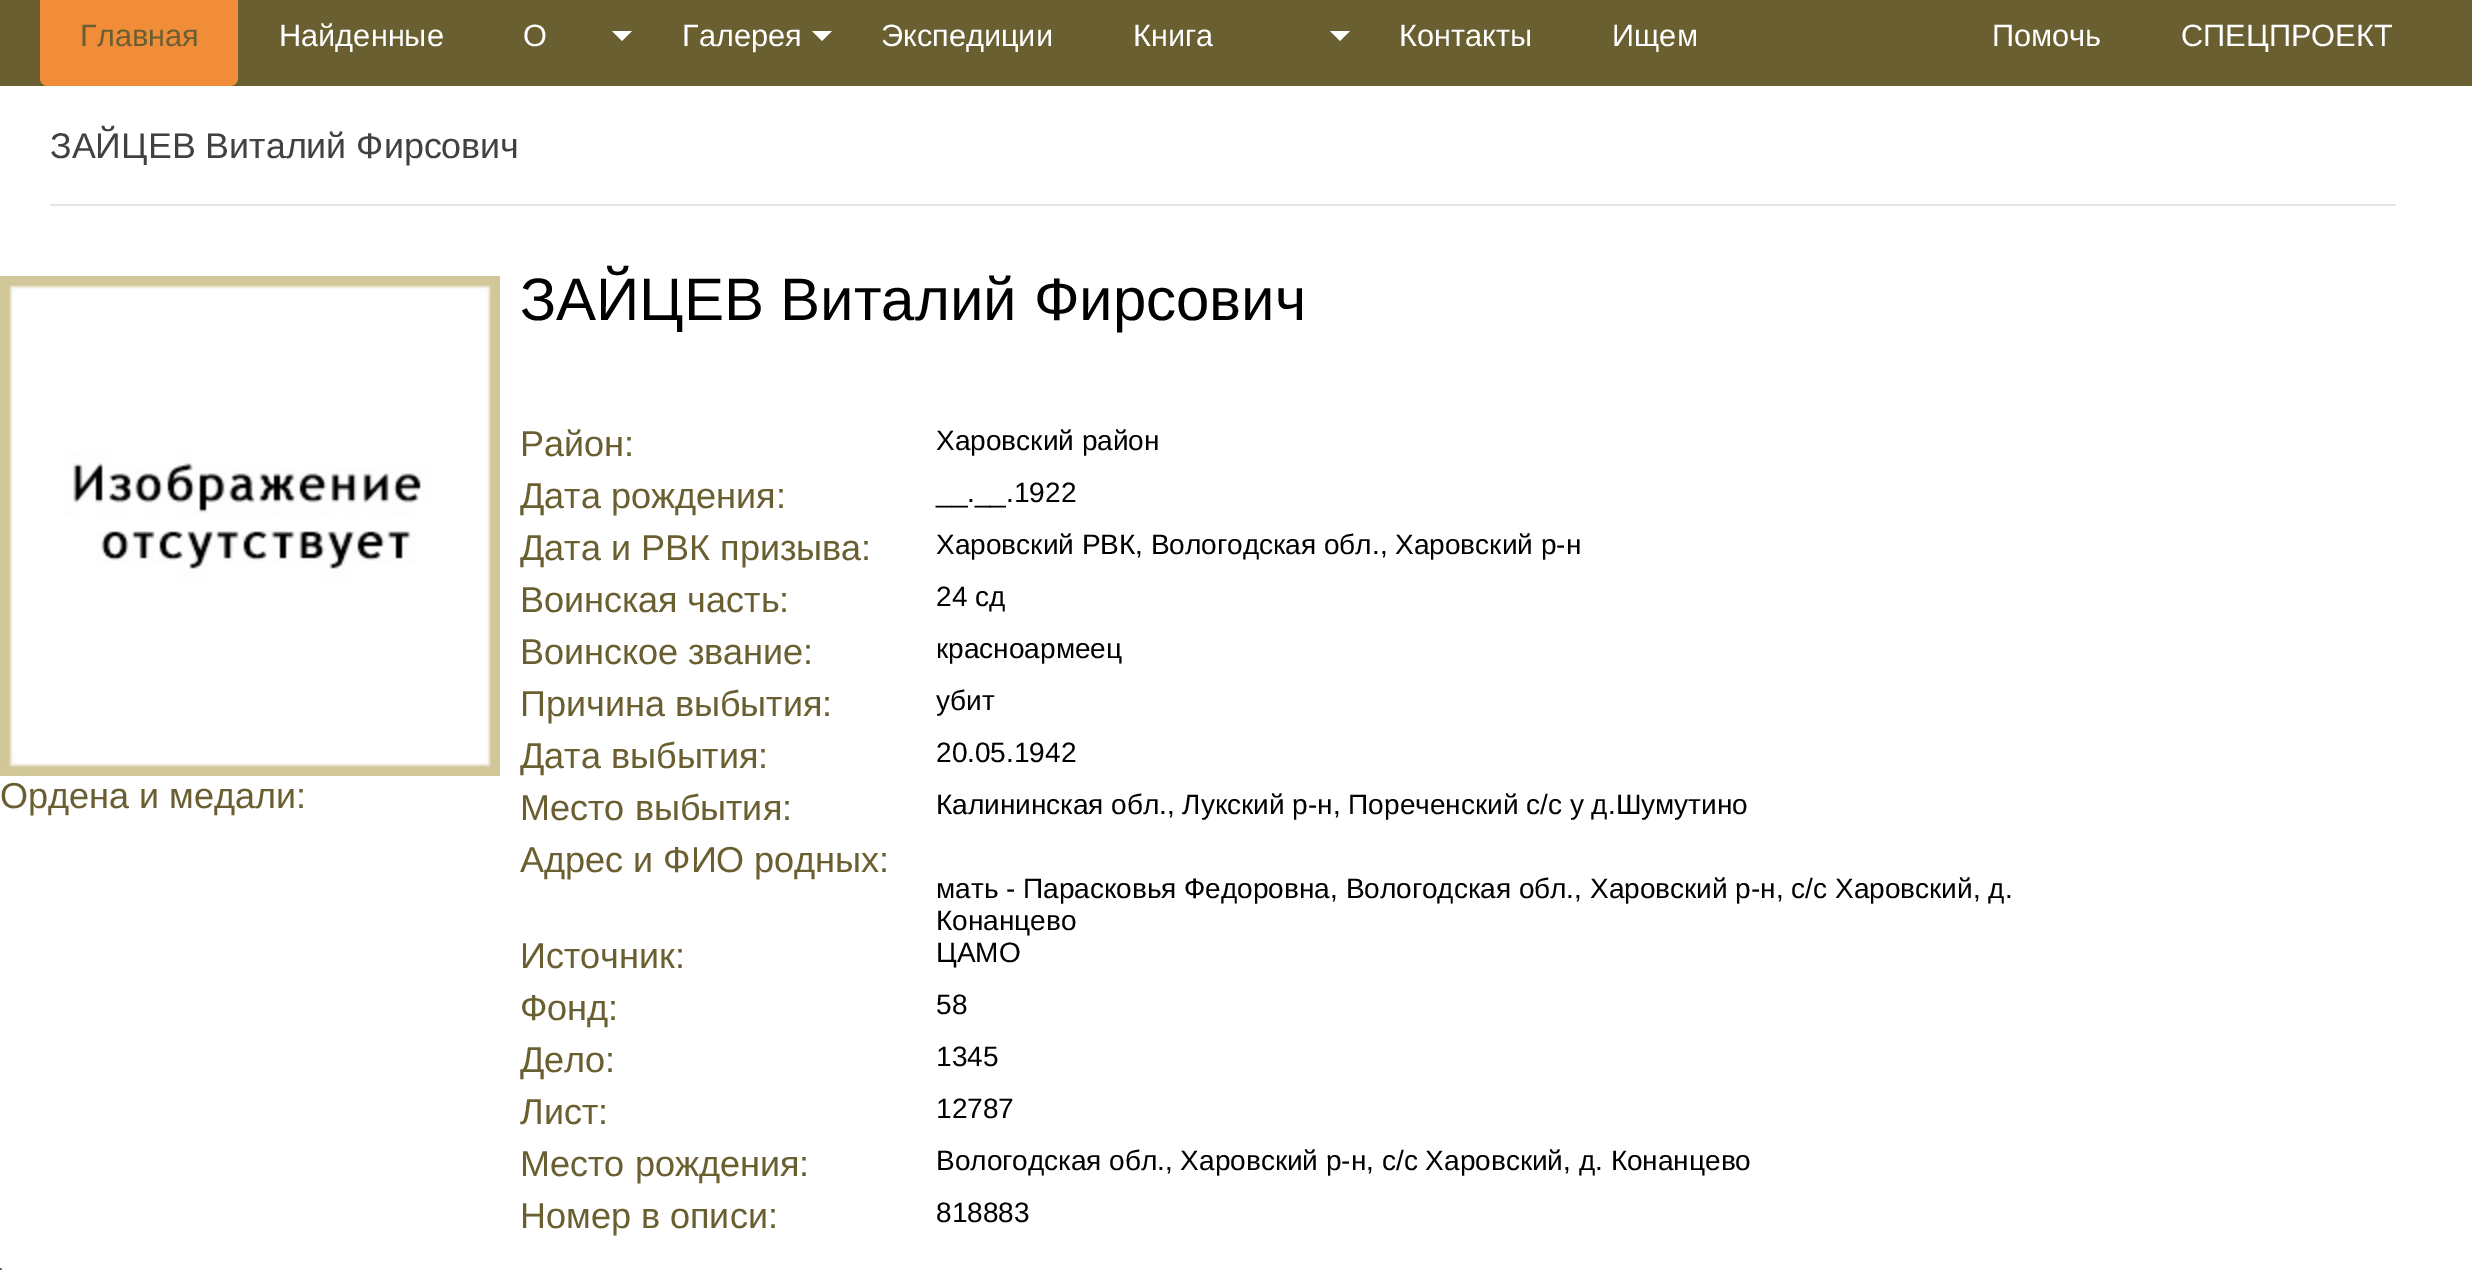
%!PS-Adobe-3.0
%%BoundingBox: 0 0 2472 1270
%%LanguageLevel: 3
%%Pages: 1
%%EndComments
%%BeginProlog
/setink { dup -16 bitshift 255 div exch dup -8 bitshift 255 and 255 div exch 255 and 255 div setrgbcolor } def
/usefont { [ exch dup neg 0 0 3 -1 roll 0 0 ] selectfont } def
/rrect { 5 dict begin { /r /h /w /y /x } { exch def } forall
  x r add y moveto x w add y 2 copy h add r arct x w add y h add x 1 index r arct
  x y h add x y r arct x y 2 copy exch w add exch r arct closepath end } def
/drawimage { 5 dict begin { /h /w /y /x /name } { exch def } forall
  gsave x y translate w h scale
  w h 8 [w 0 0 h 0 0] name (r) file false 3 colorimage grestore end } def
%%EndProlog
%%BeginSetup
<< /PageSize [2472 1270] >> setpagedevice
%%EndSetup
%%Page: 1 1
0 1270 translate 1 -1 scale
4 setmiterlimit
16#FFFFFF setink
0 0 2472 1270 rectfill
16#6A5F31 setink
0 0 2472 86 rectfill
16#F18D38 setink
40 -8 198 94 8 rrect fill
/LiberationSans-Regular 30.75 usefont
16#6A5F31 setink
80 46 moveto (Главная) show
16#FFFFFF setink
279 46 moveto (Найденные) show
523 46 moveto (О) show
612 31 moveto 622 41 lineto 632 31 lineto closepath fill
682 46 moveto (Галерея) show
812 31 moveto 822 41 lineto 832 31 lineto closepath fill
881 46 moveto (Экспедиции) show
1133 46 moveto (Книга) show
1330 31 moveto 1340 41 lineto 1350 31 lineto closepath fill
[
    [(Контакты) 1399 46]
    [(Ищем) 1612 46]
    [(Помочь) 1992 46]
    [(СПЕЦПРОЕКТ) 2181 46]
] { aload pop moveto show } forall
16#E5E5E5 setink
50 204 2346 2 rectfill
/LiberationSans-Regular 35.8 usefont
16#414141 setink
50 158 moveto (ЗАЙЦЕВ Виталий Фирсович) show
(img1.raw) 0 276 500 500 drawimage
/LiberationSans-Regular 36 usefont
16#6A5F31 setink
0 808 moveto (Ордена и медали:) show
/LiberationSans-Regular 60 usefont
16#000000 setink
520 320 moveto (ЗАЙЦЕВ Виталий Фирсович) show
/LiberationSans-Regular 36 usefont
16#6A5F31 setink
520 456 moveto (Район:) show
/LiberationSans-Regular 28 usefont
16#000000 setink
936 450 moveto (Харовский район) show
/LiberationSans-Regular 36 usefont
16#6A5F31 setink
520 508 moveto (Дата рождения:) show
/LiberationSans-Regular 28 usefont
16#000000 setink
936 502 moveto (__.__.1922) show
/LiberationSans-Regular 36 usefont
16#6A5F31 setink
520 560 moveto (Дата и РВК призыва:) show
/LiberationSans-Regular 28 usefont
16#000000 setink
936 554 moveto (Харовский РВК, Вологодская обл., Харовский р-н) show
/LiberationSans-Regular 36 usefont
16#6A5F31 setink
520 612 moveto (Воинская часть:) show
/LiberationSans-Regular 28 usefont
16#000000 setink
936 606 moveto (24 сд) show
/LiberationSans-Regular 36 usefont
16#6A5F31 setink
520 664 moveto (Воинское звание:) show
/LiberationSans-Regular 28 usefont
16#000000 setink
936 658 moveto (красноармеец) show
/LiberationSans-Regular 36 usefont
16#6A5F31 setink
520 716 moveto (Причина выбытия:) show
/LiberationSans-Regular 28 usefont
16#000000 setink
936 710 moveto (убит) show
/LiberationSans-Regular 36 usefont
16#6A5F31 setink
520 768 moveto (Дата выбытия:) show
/LiberationSans-Regular 28 usefont
16#000000 setink
936 762 moveto (20.05.1942) show
/LiberationSans-Regular 36 usefont
16#6A5F31 setink
520 820 moveto (Место выбытия:) show
/LiberationSans-Regular 28 usefont
16#000000 setink
936 814 moveto (Калининская обл., Лукский р-н, Пореченский с/с у д.Шумутино) show
/LiberationSans-Regular 36 usefont
16#6A5F31 setink
520 872 moveto (Адрес и ФИО родных:) show
/LiberationSans-Regular 28 usefont
16#000000 setink
936 898 moveto (мать - Парасковья Федоровна, Вологодская обл., Харовский р-н, с/с Харовский, д.) show
936 930 moveto (Конанцево) show
/LiberationSans-Regular 36 usefont
16#6A5F31 setink
520 968 moveto (Источник:) show
/LiberationSans-Regular 28 usefont
16#000000 setink
936 962 moveto (ЦАМО) show
/LiberationSans-Regular 36 usefont
16#6A5F31 setink
520 1020 moveto (Фонд:) show
/LiberationSans-Regular 28 usefont
16#000000 setink
936 1014 moveto (58) show
/LiberationSans-Regular 36 usefont
16#6A5F31 setink
520 1072 moveto (Дело:) show
/LiberationSans-Regular 28 usefont
16#000000 setink
936 1066 moveto (1345) show
/LiberationSans-Regular 36 usefont
16#6A5F31 setink
520 1124 moveto (Лист:) show
/LiberationSans-Regular 28 usefont
16#000000 setink
936 1118 moveto (12787) show
/LiberationSans-Regular 36 usefont
16#6A5F31 setink
520 1176 moveto (Место рождения:) show
/LiberationSans-Regular 28 usefont
16#000000 setink
936 1170 moveto (Вологодская обл., Харовский р-н, с/с Харовский, д. Конанцево) show
/LiberationSans-Regular 36 usefont
16#6A5F31 setink
520 1228 moveto (Номер в описи:) show
/LiberationSans-Regular 28 usefont
16#000000 setink
936 1222 moveto (818883) show
(img2.raw) 0 1268 2 2 drawimage
(img3.raw) 0 1268 2 2 drawimage
(img4.raw) 0 1268 2 2 drawimage
(img5.raw) 0 1268 2 2 drawimage
(img6.raw) 0 1268 2 2 drawimage
(img7.raw) 0 1268 2 2 drawimage
(img8.raw) 0 1268 2 2 drawimage
(img9.raw) 0 1268 2 2 drawimage
(img10.raw) 0 1268 2 2 drawimage
(img11.raw) 0 1268 2 2 drawimage
(img12.raw) 0 1268 2 2 drawimage
(img31.raw) 1 1268 1 2 drawimage
(img13.raw) 0 1268 2 2 drawimage
(img14.raw) 0 1268 2 2 drawimage
(img15.raw) 0 1268 2 2 drawimage
(img16.raw) 0 1268 2 2 drawimage
(img17.raw) 0 1268 2 2 drawimage
(img18.raw) 0 1268 2 2 drawimage
(img19.raw) 0 1268 2 2 drawimage
(img20.raw) 0 1268 2 2 drawimage
(img21.raw) 0 1268 2 2 drawimage
(img22.raw) 0 1268 2 2 drawimage
(img23.raw) 0 1268 2 2 drawimage
(img24.raw) 0 1268 2 2 drawimage
(img25.raw) 0 1268 2 2 drawimage
(img26.raw) 0 1268 2 2 drawimage
(img27.raw) 0 1268 2 2 drawimage
(img28.raw) 0 1268 2 2 drawimage
(img29.raw) 0 1268 2 2 drawimage
(img30.raw) 0 1268 2 2 drawimage
showpage
%%EOF
